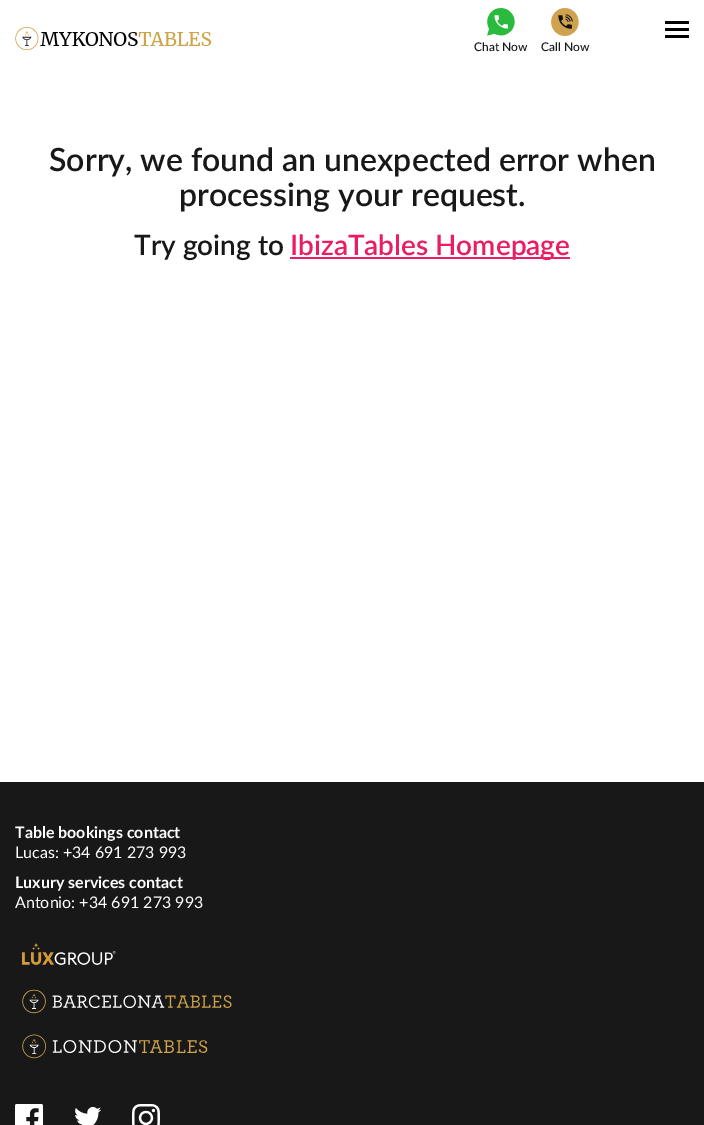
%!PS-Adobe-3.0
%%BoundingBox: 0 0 704 1125
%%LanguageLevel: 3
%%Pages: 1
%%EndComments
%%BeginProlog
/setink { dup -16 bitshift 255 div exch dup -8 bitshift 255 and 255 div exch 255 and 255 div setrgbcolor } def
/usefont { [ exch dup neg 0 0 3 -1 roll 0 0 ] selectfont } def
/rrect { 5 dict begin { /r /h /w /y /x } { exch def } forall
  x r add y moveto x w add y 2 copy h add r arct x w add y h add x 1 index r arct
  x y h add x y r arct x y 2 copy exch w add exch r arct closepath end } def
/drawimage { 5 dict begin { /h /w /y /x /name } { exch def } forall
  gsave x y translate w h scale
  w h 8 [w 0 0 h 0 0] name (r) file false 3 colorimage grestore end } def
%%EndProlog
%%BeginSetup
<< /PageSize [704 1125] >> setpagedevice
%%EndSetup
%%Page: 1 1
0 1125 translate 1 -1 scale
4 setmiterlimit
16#FFFFFF setink
0 0 704 1125 rectfill
(img1.raw) 15 27 197 23 drawimage
16#000000 setink
665 21 24 3 1 rrect fill
665 28 24 3 1 rrect fill
665 35 24 3 1 rrect fill
(img2.raw) 487 8 28 28 drawimage
/Lato-Medium 12 usefont
16#181818 setink
474 51 moveto (Chat Now) show
(img3.raw) 551 8 28 28 drawimage
541 51 moveto (Call Now) show
/Lato-SemiBold 32 usefont
49 171 moveto (Sorry, we found an unexpected error when) show
179 206 moveto (processing your request.) show
/Lato-SemiBold 28 usefont
134 255 moveto (Try going to) show
16#EA1D63 setink
290 257 280 2 rectfill
290 255 moveto (IbizaTables Homepage) show
16#181818 setink
0 782 704 343 rectfill
/Lato-Bold 16 usefont
16#FFFFFF setink
15 838 moveto (Table bookings contact) show
/Lato-Regular 16 usefont
15 858 moveto (Lucas: +34 691 273 993) show
/Lato-Bold 16 usefont
15 888 moveto (Luxury services contact) show
/Lato-Regular 16 usefont
15 908 moveto (Antonio: +34 691 273 993) show
(img4.raw) 22 943 94 22 drawimage
(img5.raw) 22 989 210 25 drawimage
(img6.raw) 22 1034 186 25 drawimage
(img7.raw) 15 1104 28 21 drawimage
(img8.raw) 75 1107 27 18 drawimage
(img9.raw) 132 1104 28 21 drawimage
showpage
%%EOF
